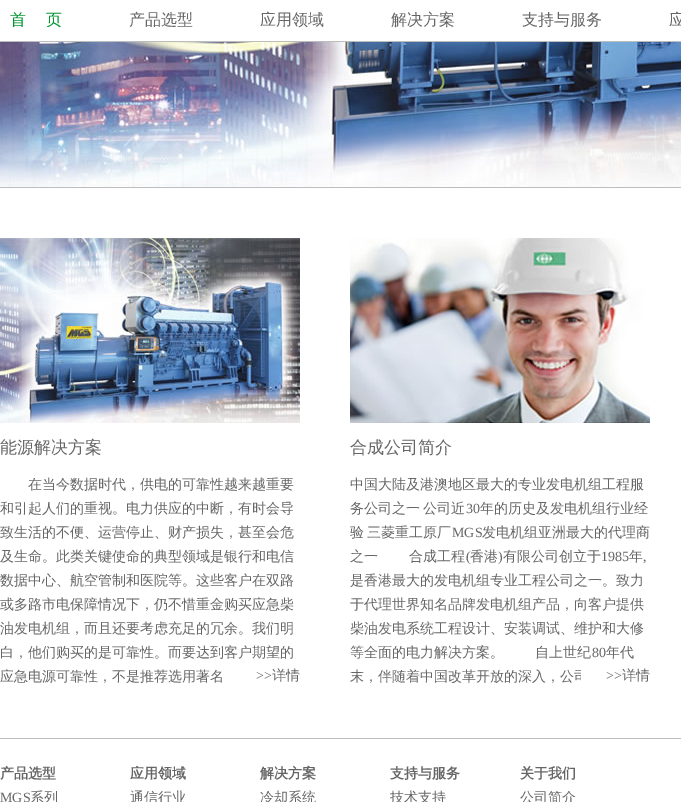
%!PS-Adobe-3.0
%%BoundingBox: 0 0 681 802
%%LanguageLevel: 3
%%Pages: 1
%%EndComments
%%BeginProlog
/setink { dup -16 bitshift 255 div exch dup -8 bitshift 255 and 255 div exch 255 and 255 div setrgbcolor } def
/usefont { [ exch dup neg 0 0 3 -1 roll 0 0 ] selectfont } def
/drawimage { 5 dict begin { /h /w /y /x /name } { exch def } forall
  gsave x y translate w h scale
  w h 8 [w 0 0 h 0 0] name (r) file false 3 colorimage grestore end } def
%%EndProlog
%%BeginSetup
<< /PageSize [681 802] >> setpagedevice
%%EndSetup
%%Page: 1 1
0 802 translate 1 -1 scale
4 setmiterlimit
16#FFFFFF setink
0 0 681 802 rectfill
16#BDBDBD setink
0 41 681 1 rectfill
/WenQuanYiZenHei-Medium 16 usefont
16#00952F setink
10 25 moveto 20 0 (首页) ashow
16#666666 setink
[
    [(产品选型) 129 25]
    [(应用领域) 260 25]
    [(解决方案) 391 25]
    [(支持与服务) 522 25]
    [(应) 669 25]
] { aload pop moveto show } forall
(img1.raw) 0 42 681 145 drawimage
16#BDBDBD setink
0 187 681 1 rectfill
(img2.raw) 0 238 300 185 drawimage
/WenQuanYiZenHei-Medium 17 usefont
16#666666 setink
0 453 moveto (能源解决方案) show
/WenQuanYiZenHei-Medium 14 usefont
[
    [(在当今数据时代，供电的可靠性越来越重要) 28 489]
    [(和引起人们的重视。电力供应的中断，有时会导) 0 513]
    [(致生活的不便、运营停止、财产损失，甚至会危) 0 537]
    [(及生命。此类关键使命的典型领域是银行和电信) 0 561]
    [(数据中心、航空管制和医院等。这些客户在双路) 0 585]
    [(或多路市电保障情况下，仍不惜重金购买应急柴) 0 609]
    [(油发电机组，而且还要考虑充足的冗余。我们明) 0 633]
    [(白，他们购买的是可靠性。而要达到客户期望的) 0 657]
    [(应急电源可靠性，不是推荐选用著名) 0 681]
] { aload pop moveto show } forall
/LiberationSerif-Regular 14 usefont
256 680 moveto (>>) show
/WenQuanYiZenHei-Medium 14 usefont
272 680 moveto (详情) show
(img3.raw) 350 238 300 185 drawimage
/WenQuanYiZenHei-Medium 17 usefont
350 453 moveto (合成公司简介) show
/WenQuanYiZenHei-Medium 14 usefont
350 489 moveto (中国大陆及港澳地区最大的专业发电机组工程服) show
350 513 moveto -1 0 32 (务公司之一 公司近) widthshow
/LiberationSerif-Regular 14 usefont
466 513 moveto (30) show
/WenQuanYiZenHei-Medium 14 usefont
480 513 moveto (年的历史及发电机组行业经) show
350 537 moveto -1 0 32 (验 三菱重工原厂) widthshow
/LiberationSerif-Regular 14 usefont
452 537 moveto (MGS) show
/WenQuanYiZenHei-Medium 14 usefont
482 537 moveto (发电机组亚洲最大的代理商) show
350 561 moveto -1 0 32 (之一 　　合成工程) widthshow
/LiberationSerif-Regular 14 usefont
466 561 moveto (\() show
/WenQuanYiZenHei-Medium 14 usefont
470 561 moveto (香港) show
/LiberationSerif-Regular 14 usefont
498 561 moveto (\)) show
/WenQuanYiZenHei-Medium 14 usefont
503 561 moveto (有限公司创立于) show
/LiberationSerif-Regular 14 usefont
601 561 moveto (1985) show
/WenQuanYiZenHei-Medium 14 usefont
629 561 moveto (年) show
/LiberationSerif-Regular 14 usefont
643 561 moveto (,) show
/WenQuanYiZenHei-Medium 14 usefont
[
    [(是香港最大的发电机组专业工程公司之一。致力) 350 585]
    [(于代理世界知名品牌发电机组产品，向客户提供) 350 609]
    [(柴油发电系统工程设计、安装调试、维护和大修) 350 633]
] { aload pop moveto show } forall
350 657 moveto -1 0 32 (等全面的电力解决方案。 　　自上世纪) widthshow
/LiberationSerif-Regular 14 usefont
592 657 moveto (80) show
/WenQuanYiZenHei-Medium 14 usefont
606 657 moveto (年代) show
350 681 moveto (末，伴随着中国改革开放的深入，公司) show
16#FFFFFF setink
581 670 5 13 rectfill
/LiberationSerif-Regular 14 usefont
16#666666 setink
606 680 moveto (>>) show
/WenQuanYiZenHei-Medium 14 usefont
622 680 moveto (详情) show
16#BDBDBD setink
0 738 681 1 rectfill
/WenQuanYiZenHei-Bold 14 usefont
16#666666 setink
[
    [(产品选型) 0 778]
    [(应用领域) 130 778]
    [(解决方案) 260 778]
    [(支持与服务) 390 778]
    [(关于我们) 520 778]
] { aload pop moveto show } forall
/LiberationSerif-Regular 14 usefont
0 802 moveto (MGS) show
/WenQuanYiZenHei-Medium 14 usefont
[
    [(系列) 30 802]
    [(通信行业) 130 802]
    [(冷却系统) 260 802]
    [(技术支持) 390 802]
    [(公司简介) 520 802]
] { aload pop moveto show } forall
showpage
%%EOF
